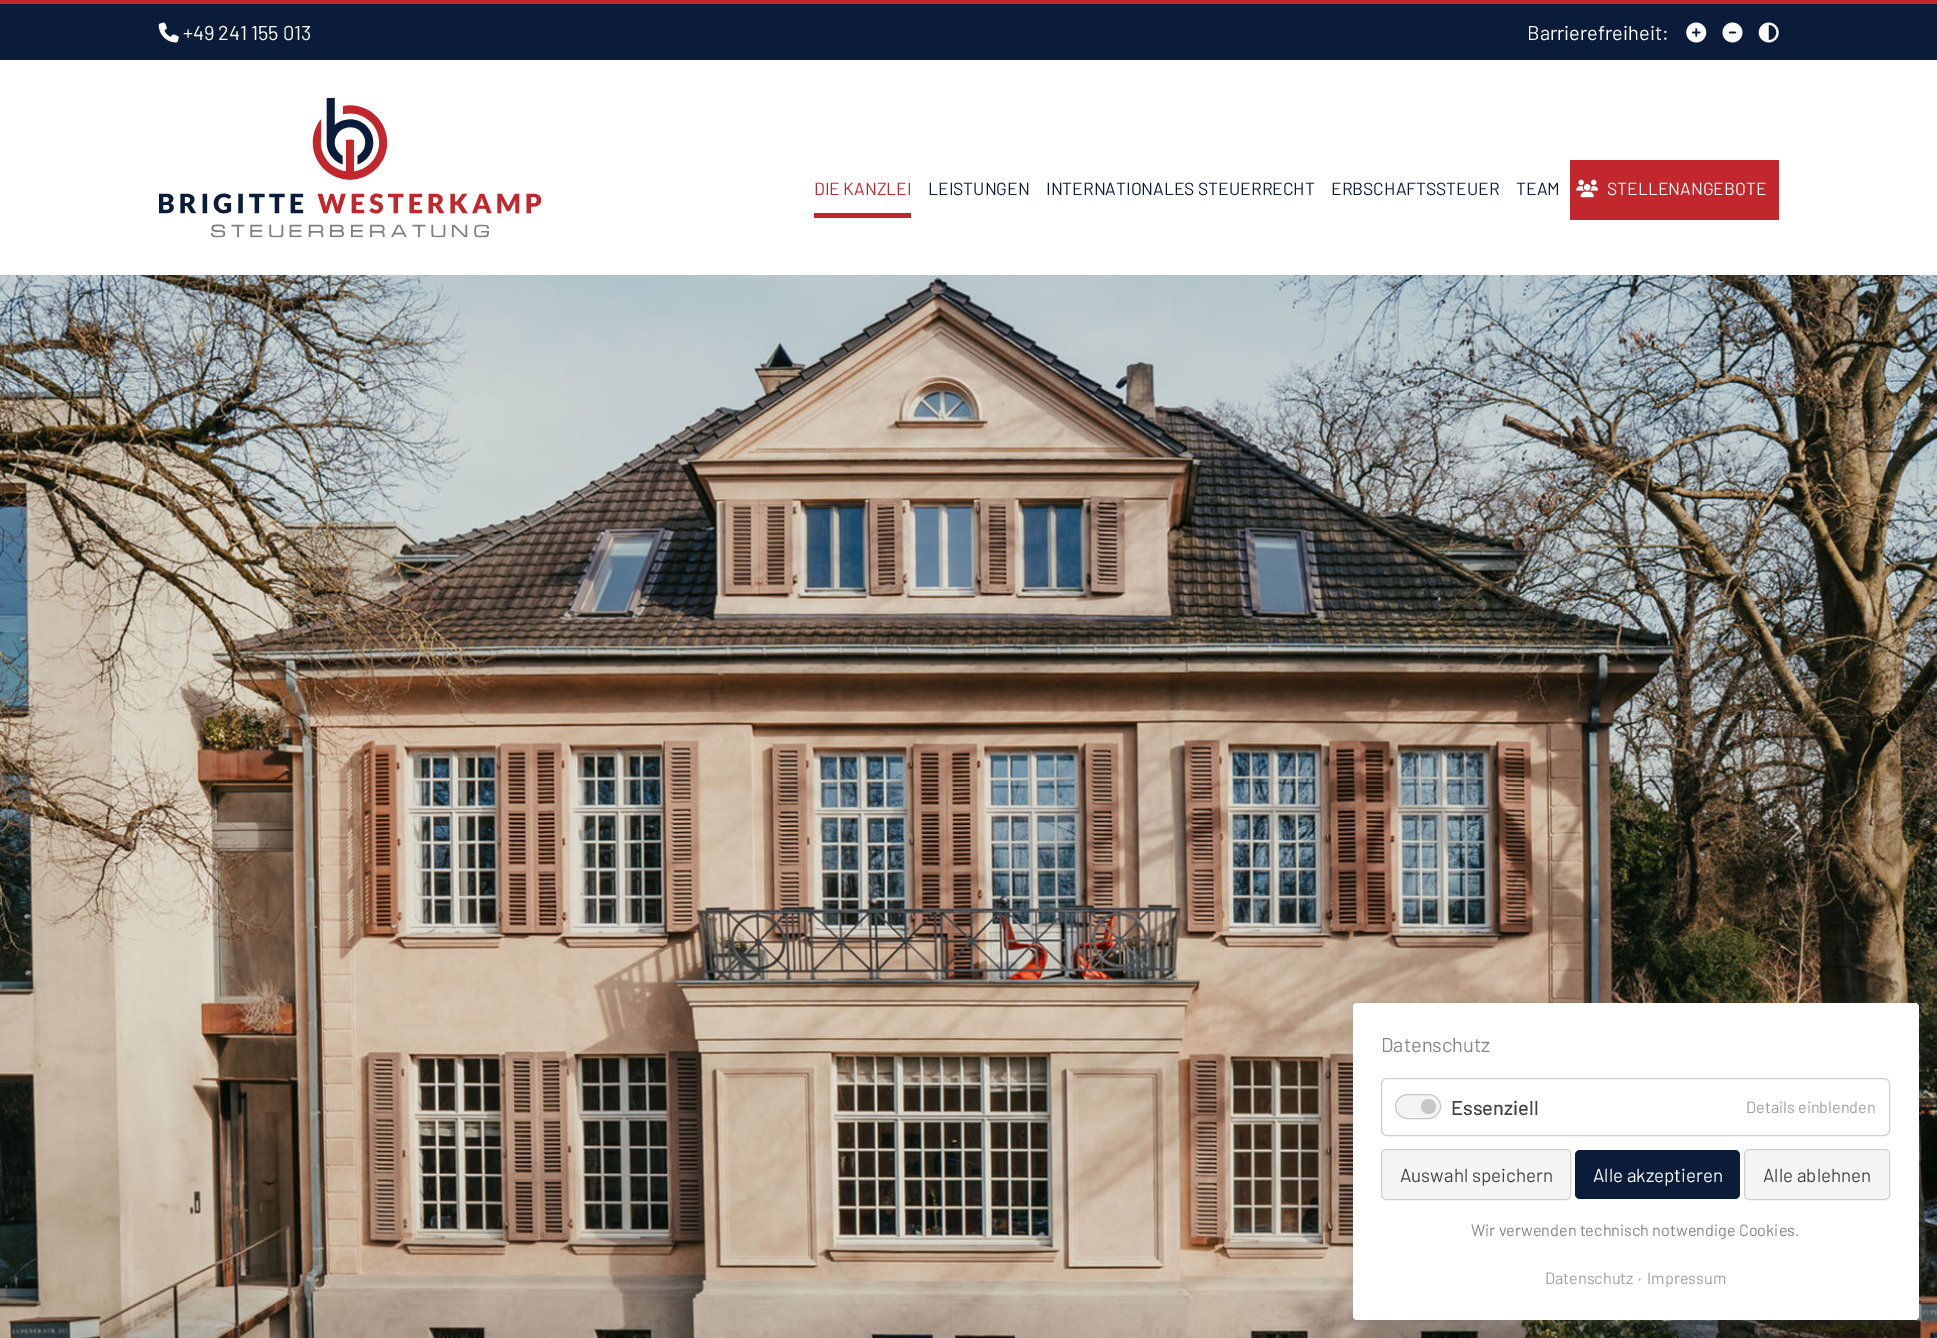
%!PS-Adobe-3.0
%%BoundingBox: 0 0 1937 1338
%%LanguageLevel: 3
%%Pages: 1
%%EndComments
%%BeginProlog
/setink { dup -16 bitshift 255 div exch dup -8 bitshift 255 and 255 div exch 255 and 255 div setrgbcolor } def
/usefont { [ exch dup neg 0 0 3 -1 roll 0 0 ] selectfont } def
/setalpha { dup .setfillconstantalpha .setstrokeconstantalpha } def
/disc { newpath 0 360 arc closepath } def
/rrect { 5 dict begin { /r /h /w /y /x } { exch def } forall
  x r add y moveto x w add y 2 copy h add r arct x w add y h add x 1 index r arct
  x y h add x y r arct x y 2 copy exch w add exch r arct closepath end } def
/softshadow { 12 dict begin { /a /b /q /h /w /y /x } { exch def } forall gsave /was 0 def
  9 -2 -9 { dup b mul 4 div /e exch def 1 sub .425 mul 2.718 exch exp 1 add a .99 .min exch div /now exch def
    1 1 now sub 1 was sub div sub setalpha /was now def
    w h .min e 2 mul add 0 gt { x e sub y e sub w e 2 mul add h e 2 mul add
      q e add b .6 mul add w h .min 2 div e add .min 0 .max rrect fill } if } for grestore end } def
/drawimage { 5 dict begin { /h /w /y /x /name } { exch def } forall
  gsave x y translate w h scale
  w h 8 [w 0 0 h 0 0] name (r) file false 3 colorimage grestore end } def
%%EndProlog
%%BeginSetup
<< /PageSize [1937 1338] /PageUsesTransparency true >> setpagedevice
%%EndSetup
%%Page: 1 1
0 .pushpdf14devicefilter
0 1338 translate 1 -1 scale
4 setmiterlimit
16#FFFFFF setink
0 0 1937 1338 rectfill
16#0B1C3A setink
0 4 1937 56 rectfill
16#C1272D setink
0 0 1937 4 rectfill
(img1.raw) 158 22 21 21 drawimage
/Barlow-Regular 20 usefont
16#FFFFFF setink
183 40 moveto (+49 241 155 013) show
1527 40 moveto (Barrierefreiheit:) show
(img2.raw) 1686 22 21 21 drawimage
(img3.raw) 1722 22 21 21 drawimage
(img4.raw) 1758 22 21 21 drawimage
(img5.raw) 159 98 382 140 drawimage
/Barlow-Regular 17.5 usefont
16#C1272D setink
814 195 moveto (DIE KANZLEI) show
814 213 97 5 rectfill
16#0B1C3A setink
[
    [(LEISTUNGEN) 928 195]
    [(INTERNATIONALES STEUERRECHT) 1046 195]
    [(ERBSCHAFTSSTEUER) 1331 195]
    [(TEAM) 1516 195]
] { aload pop moveto show } forall
16#C1272D setink
1570 160 209 60 rectfill
(img6.raw) 1576 179 23 19 drawimage
16#FFFFFF setink
1607 195 moveto (STELLENANGEBOTE) show
(img7.raw) 0 275 1937 1063 drawimage
(img8.raw) 136 813 18 34 drawimage
(img9.raw) 1783 813 19 34 drawimage
16#636363 setink
1353 1005 566 318 4 5 0.2 softshadow
16#FFFFFF setink
1353 1003 566 317 4 rrect fill
/Barlow-Regular 20 usefont
16#868686 setink
1381 1052 moveto (Datenschutz) show
16#D0D0D0 setink
1381.5 1078.5 508 57 5.5 rrect stroke
16#F4F4F4 setink
1395.5 1094.5 45 24 12 rrect gsave fill grestore
16#C8C7C5 setink
stroke
1428.5 1106.5 7.5 disc fill
/Barlow-Medium 20 usefont
16#444444 setink
1451 1115 moveto (Essenziell) show
/Barlow-Regular 16.25 usefont
16#A2A2A2 setink
1746 1113 moveto (Details einblenden) show
16#F5F5F5 setink
1381.5 1149.5 189 50 4.5 rrect gsave fill grestore
16#CFCFCF setink
stroke
/Barlow-Regular 18.75 usefont
16#444444 setink
1400 1182 moveto (Auswahl speichern) show
16#0B1C3A setink
1575 1150 165 49 5 rrect fill
16#FFFFFF setink
1593 1182 moveto (Alle akzeptieren) show
16#F5F5F5 setink
1744.5 1149.5 145 50 4.5 rrect gsave fill grestore
16#CFCFCF setink
stroke
16#444444 setink
1763 1182 moveto (Alle ablehnen) show
/Barlow-Regular 16.25 usefont
16#868686 setink
1471 1236 moveto (Wir verwenden technisch notwendige Cookies.) show
16#A2A2A2 setink
[
    [(Datenschutz) 1545 1284]
    [(·) 1638 1284]
    [(Impressum) 1647 1284]
] { aload pop moveto show } forall
.poppdf14devicefilter showpage
%%EOF
